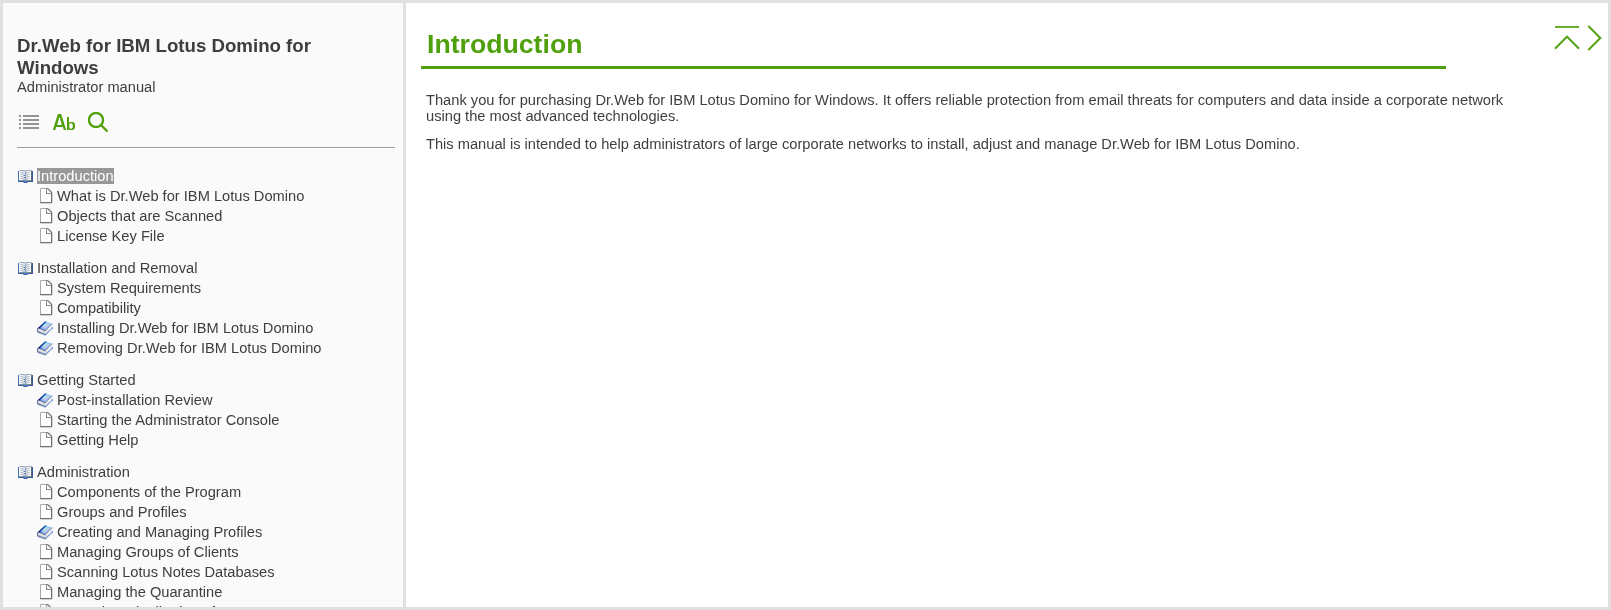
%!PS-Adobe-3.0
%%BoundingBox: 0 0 1611 610
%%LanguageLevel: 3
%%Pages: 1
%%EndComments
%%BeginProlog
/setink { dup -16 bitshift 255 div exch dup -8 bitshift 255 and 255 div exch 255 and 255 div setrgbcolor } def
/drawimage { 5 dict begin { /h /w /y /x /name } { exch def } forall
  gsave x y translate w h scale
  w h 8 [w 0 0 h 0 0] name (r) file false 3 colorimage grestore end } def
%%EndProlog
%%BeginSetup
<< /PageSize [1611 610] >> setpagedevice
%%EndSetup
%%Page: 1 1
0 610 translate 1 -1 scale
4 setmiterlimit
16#E0E0E0 setink
0 0 1611 610 rectfill
(img1.raw) 3 3 400 604 drawimage
(img2.raw) 406 3 1202 604 drawimage
showpage
%%EOF
